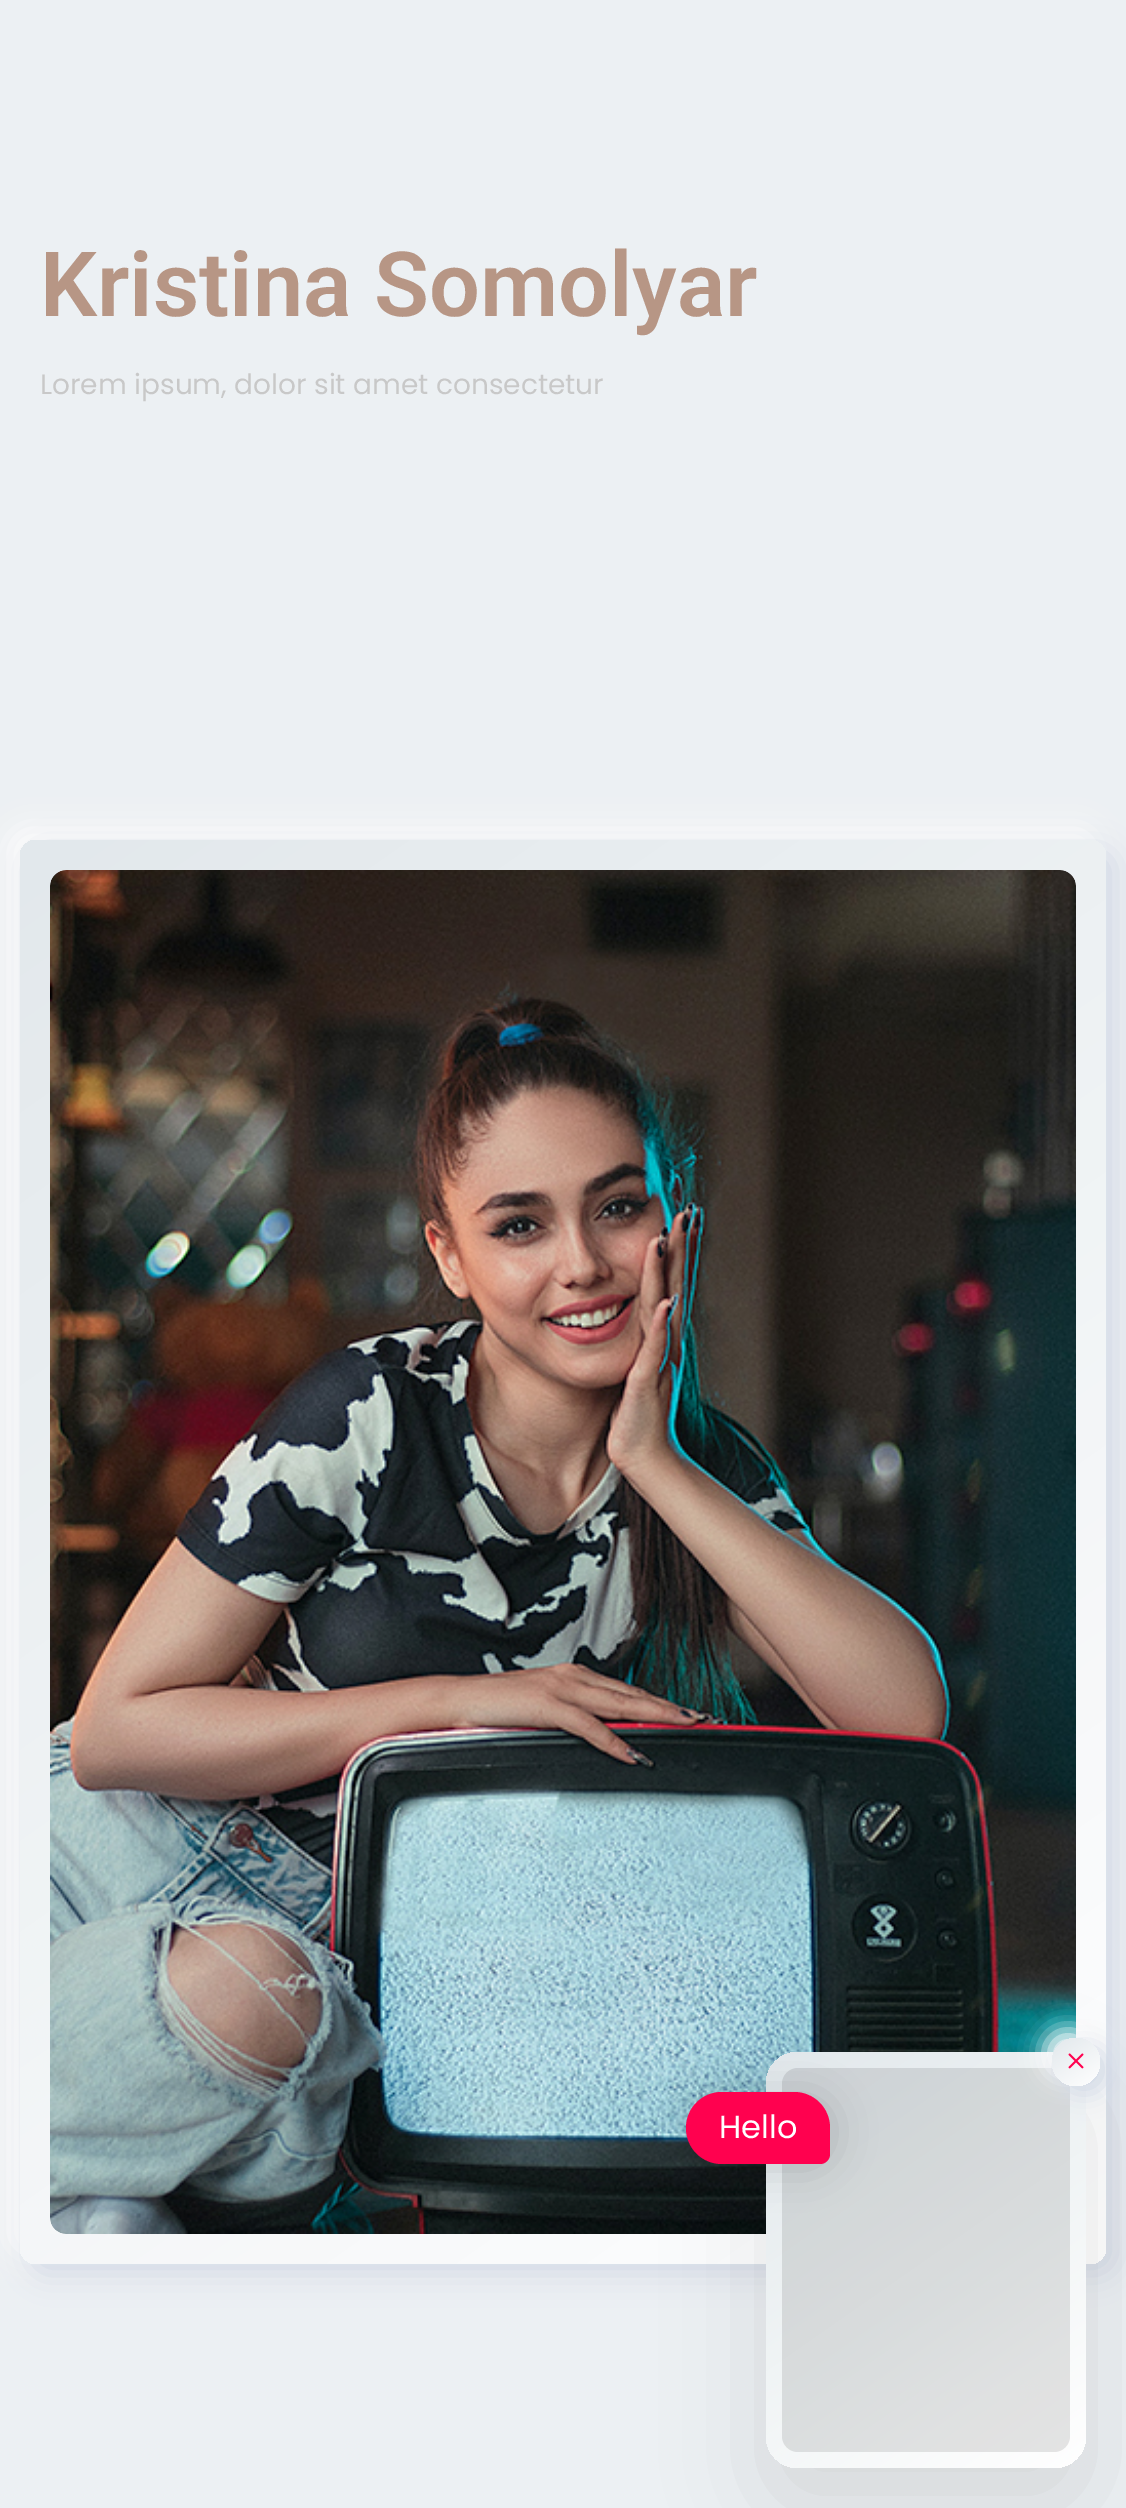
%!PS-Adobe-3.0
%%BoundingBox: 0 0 1126 2508
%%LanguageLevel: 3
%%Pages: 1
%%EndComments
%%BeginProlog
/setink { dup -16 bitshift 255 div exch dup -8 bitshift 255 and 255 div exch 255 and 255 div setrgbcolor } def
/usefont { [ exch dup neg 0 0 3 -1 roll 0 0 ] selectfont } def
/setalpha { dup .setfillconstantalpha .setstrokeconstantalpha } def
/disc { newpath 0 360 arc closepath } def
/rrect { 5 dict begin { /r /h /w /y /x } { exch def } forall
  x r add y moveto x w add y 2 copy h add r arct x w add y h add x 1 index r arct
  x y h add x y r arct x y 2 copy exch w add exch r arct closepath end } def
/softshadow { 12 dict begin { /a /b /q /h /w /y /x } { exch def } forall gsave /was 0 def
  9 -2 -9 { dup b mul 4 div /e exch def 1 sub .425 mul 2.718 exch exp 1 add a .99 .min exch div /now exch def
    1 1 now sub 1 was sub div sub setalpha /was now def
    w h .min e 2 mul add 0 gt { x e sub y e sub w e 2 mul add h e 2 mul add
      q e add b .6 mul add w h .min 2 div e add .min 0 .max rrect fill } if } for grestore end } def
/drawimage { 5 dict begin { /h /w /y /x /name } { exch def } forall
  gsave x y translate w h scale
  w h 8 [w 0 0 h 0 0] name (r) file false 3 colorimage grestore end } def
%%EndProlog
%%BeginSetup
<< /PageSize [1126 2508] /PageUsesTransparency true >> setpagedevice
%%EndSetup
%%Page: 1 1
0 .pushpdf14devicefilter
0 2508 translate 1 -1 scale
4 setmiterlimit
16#ECF0F3 setink
0 0 1126 2508 rectfill
/Roboto-SemiBold 90 usefont
16#B79685 setink
40 316 moveto (Kristina Somolyar) show
/Poppins-Regular 28 usefont
16#C8C8C8 setink
40 394 moveto (Lorem ipsum, dolor sit amet consectetur) show
16#FFFFFF setink
10 830 1086 1424 16 15 1 softshadow
16#D1D9E6 setink
30 850 1086 1424 16 15 1 softshadow
gsave 20 840 1086 1424 16 rrect clip newpath
<< /ShadingType 2 /ColorSpace /DeviceRGB /Coords [50 819 1076 2285] /Extend [true true] /Function << /FunctionType 2 /Domain [0 1] /C0 [0.886 0.91 0.925] /C1 [1 1 1] /N 1 >> >> shfill grestore
(img1.raw) 50 870 1026 1364 drawimage
16#000000 setink
766 2092 320 416 32 48 0.1 softshadow
gsave 766 2052 320 416 32 rrect clip newpath
<< /ShadingType 2 /ColorSpace /DeviceRGB /Coords [776 2045 1076 2475] /Extend [true true] /Function << /FunctionType 2 /Domain [0 1] /C0 [0.886 0.91 0.925] /C1 [1 1 1] /N 1 >> >> shfill grestore
0.1 setalpha
782 2068 288 384 16 rrect fill
1 setalpha
690 2096 144 72 36 20 0.15 softshadow
16#FF014F setink
722 2092 moveto 794 2092 lineto 814 2092 830 2108 830 2128 curveto 830 2154 lineto 830 2159.5 825.5 2164 820 2164 curveto 722 2164 lineto 702 2164 686 2148 686 2128 curveto 686 2108 702 2092 722 2092 curveto closepath fill
/Poppins-Regular 32 usefont
16#FFFFFF setink
719 2138 moveto (Hello) show
1044 2030 48 48 24 12 1 softshadow
16#D1D9E6 setink
1060 2046 48 48 24 12 1 softshadow
gsave 1076 2062 24 disc clip newpath
<< /ShadingType 2 /ColorSpace /DeviceRGB /Coords [1057 2035 1095 2089] /Extend [true true] /Function << /FunctionType 2 /Domain [0 1] /C0 [0.886 0.91 0.925] /C1 [1 1 1] /N 1 >> >> shfill grestore
(img2.raw) 1068 2053 16 16 drawimage
.poppdf14devicefilter showpage
%%EOF
